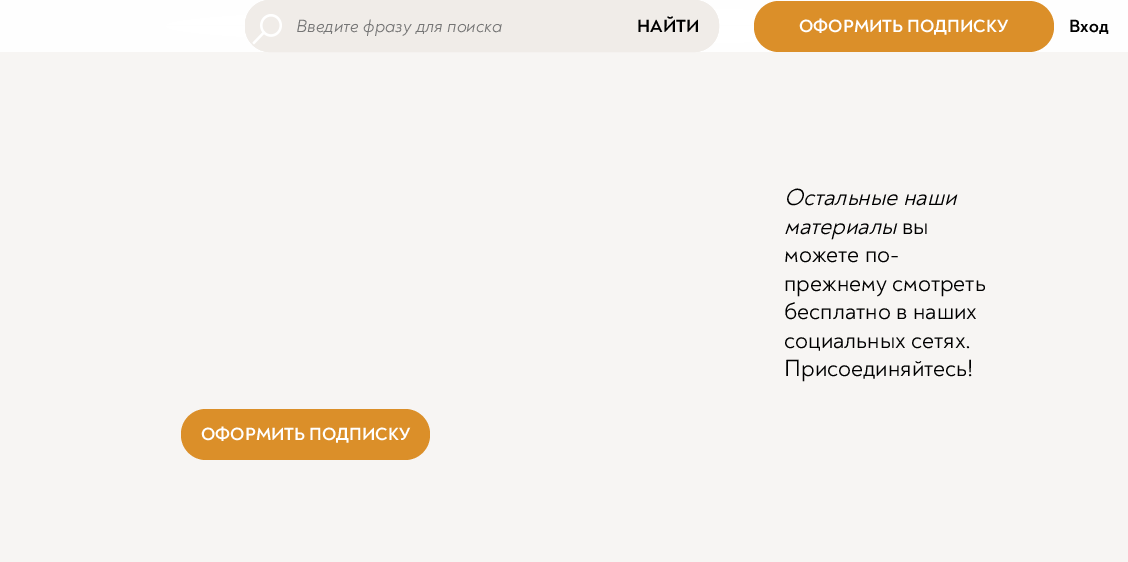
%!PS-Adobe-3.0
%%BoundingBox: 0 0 1128 562
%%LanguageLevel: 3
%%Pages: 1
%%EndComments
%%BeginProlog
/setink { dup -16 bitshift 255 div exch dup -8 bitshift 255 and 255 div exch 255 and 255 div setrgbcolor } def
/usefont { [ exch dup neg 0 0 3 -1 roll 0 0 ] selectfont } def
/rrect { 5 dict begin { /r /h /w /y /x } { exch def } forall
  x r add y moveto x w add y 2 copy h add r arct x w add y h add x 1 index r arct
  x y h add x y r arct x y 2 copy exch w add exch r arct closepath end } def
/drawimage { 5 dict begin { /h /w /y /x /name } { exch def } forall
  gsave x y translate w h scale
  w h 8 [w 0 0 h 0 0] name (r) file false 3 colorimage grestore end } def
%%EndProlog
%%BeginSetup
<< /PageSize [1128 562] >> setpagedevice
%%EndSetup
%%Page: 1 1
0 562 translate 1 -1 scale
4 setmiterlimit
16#F7F5F3 setink
0 0 1128 562 rectfill
gsave 0 0 moveto 1128 0 lineto 1128 52 lineto 0 52 lineto closepath clip newpath 564 26 translate 798 37 scale
<< /ShadingType 3 /ColorSpace /DeviceRGB /Coords [0 0 0 0 0 1] /Extend [true true] /Function << /FunctionType 2 /Domain [0 1] /C0 [1 1 1] /C1 [0.996 0.996 0.996] /N 1 >> >> shfill grestore
16#F0ECE8 setink
245 0 474 52 25 rrect fill
(img1.raw) 251 14 31 31 drawimage
245.5 0.5 473 51 24.5 rrect stroke
/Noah-Italic 18 usefont
16#757575 setink
296 32 moveto (Введите фразу для поиска) show
/Noah-Bold 18 usefont
16#000000 setink
637 32 moveto (НАЙТИ) show
16#DB8F29 setink
754 1 300 51 25 rrect fill
16#FFFFFF setink
799 32 moveto (ОФОРМИТЬ ПОДПИСКУ) show
16#000000 setink
1069 32 moveto (Вход) show
/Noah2-Italic 23.75 usefont
784 205 moveto (Остальные наши) show
784 234 moveto (материалы) show
/Noah-Regular 23.75 usefont
[
    [(вы) 902 234]
    [(можете по-) 784 262]
    [(прежнему смотреть) 784 291]
    [(бесплатно в наших) 784 319]
    [(социальных сетях.) 784 348]
    [(Присоединяйтесь!) 784 376]
] { aload pop moveto show } forall
16#DB8F29 setink
181 409 249 51 25 rrect fill
/Noah-Bold 18 usefont
16#FFFFFF setink
201 440 moveto (ОФОРМИТЬ ПОДПИСКУ) show
showpage
%%EOF
